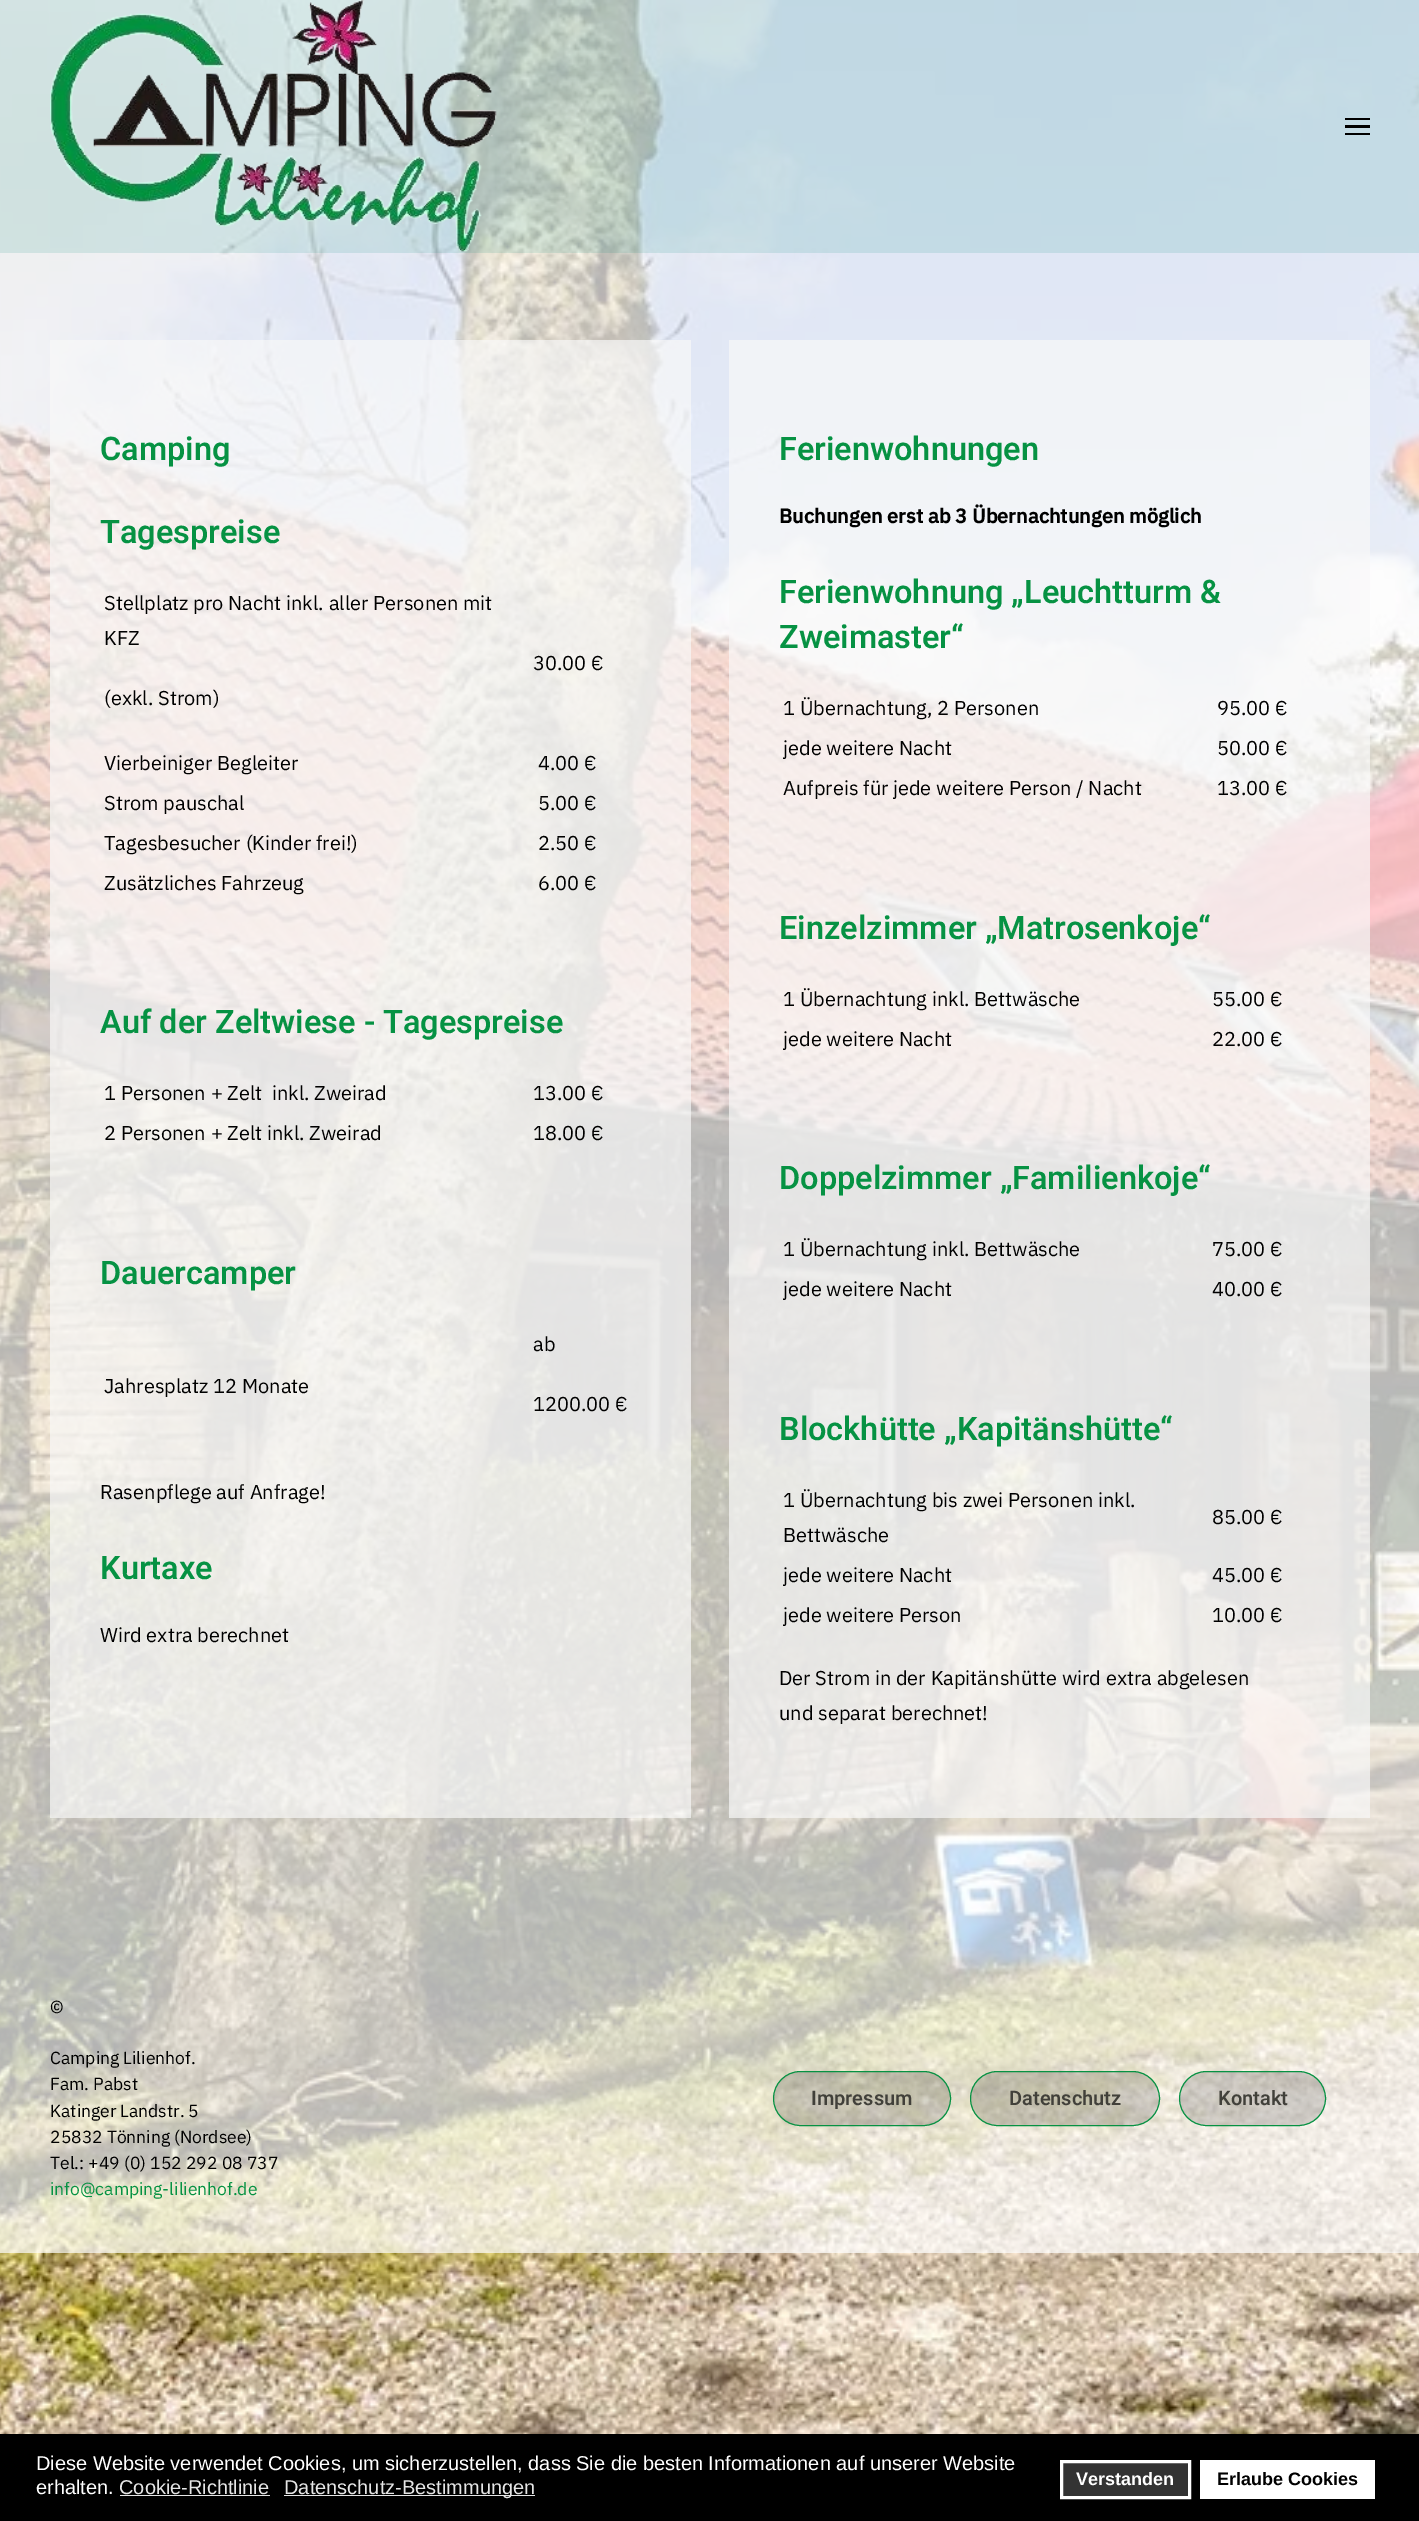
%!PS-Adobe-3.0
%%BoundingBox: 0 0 1419 2521
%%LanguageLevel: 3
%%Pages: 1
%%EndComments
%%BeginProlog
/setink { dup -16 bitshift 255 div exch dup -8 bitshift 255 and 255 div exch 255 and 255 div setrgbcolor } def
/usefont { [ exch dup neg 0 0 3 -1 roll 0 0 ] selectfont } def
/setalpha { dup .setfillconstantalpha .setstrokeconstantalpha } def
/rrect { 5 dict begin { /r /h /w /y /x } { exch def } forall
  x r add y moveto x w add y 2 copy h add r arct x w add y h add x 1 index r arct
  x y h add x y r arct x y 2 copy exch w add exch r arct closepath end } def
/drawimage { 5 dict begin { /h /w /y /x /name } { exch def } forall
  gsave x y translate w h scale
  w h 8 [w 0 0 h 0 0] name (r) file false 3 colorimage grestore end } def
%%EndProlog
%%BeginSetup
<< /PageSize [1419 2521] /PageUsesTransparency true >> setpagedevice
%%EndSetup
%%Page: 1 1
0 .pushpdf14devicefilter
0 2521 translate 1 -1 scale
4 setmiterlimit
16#FFFFFF setink
0 0 1419 2521 rectfill
(img1.raw) 0 0 1419 2434 drawimage
0.7 setalpha
0 0 1419 2253 rectfill
0.13 setalpha
16#008776 setink
0 0 1419 253 rectfill
1 setalpha
(img2.raw) 50 0 447 252 drawimage
[
    [1345 118 25 2 16#000000]
    [1345 125 25 3 16#000000]
    [1345 133 25 2 16#000000]
] { aload pop setink rectfill } forall
0.69 setalpha
[
    [50 340 641 1478 16#F8F8F8]
] { aload pop setink rectfill } forall
/Heebo-SemiBold 32.5 usefont
1 setalpha
16#069243 setink
100 460 moveto (Camping) show
100 543 moveto (Tagespreise) show
/IBMPlexSans-Regular 20 usefont
16#000000 setink
[
    [(Stellplatz pro Nacht inkl. aller Personen mit) 104 610]
    [(KFZ) 104 645]
    [(\(exkl. Strom\)) 104 705]
    [(30.00 €) 533 670]
    [(Vierbeiniger Begleiter) 104 770]
    [(4.00 €) 538 770]
    [(Strom pauschal) 104 810]
    [(5.00 €) 538 810]
    [(Tagesbesucher \(Kinder frei!\)) 104 850]
    [(2.50 €) 538 850]
    [(Zusätzliches Fahrzeug) 104 890]
    [(6.00 €) 538 890]
] { aload pop moveto show } forall
/Heebo-SemiBold 32.5 usefont
16#069243 setink
100 1033 moveto (Auf der Zeltwiese - Tagespreise) show
/IBMPlexSans-Regular 20 usefont
16#000000 setink
[
    [(1 Personen + Zelt  inkl. Zweirad) 104 1100]
    [(13.00 €) 533 1100]
    [(2 Personen + Zelt inkl. Zweirad) 104 1140]
    [(18.00 €) 533 1140]
] { aload pop moveto show } forall
/Heebo-SemiBold 32.5 usefont
16#069243 setink
100 1284 moveto (Dauercamper) show
/IBMPlexSans-Regular 20 usefont
16#000000 setink
[
    [(Jahresplatz 12 Monate) 104 1393]
    [(ab) 533 1351]
    [(1200.00 €) 533 1411]
    [(Rasenpflege auf Anfrage!) 100 1499]
] { aload pop moveto show } forall
/Heebo-SemiBold 32.5 usefont
16#069243 setink
100 1579 moveto (Kurtaxe) show
/IBMPlexSans-Regular 20 usefont
16#000000 setink
100 1642 moveto (Wird extra berechnet) show
0.69 setalpha
16#F8F8F8 setink
729 340 641 1478 rectfill
/Heebo-SemiBold 32.5 usefont
1 setalpha
16#069243 setink
779 460 moveto (Ferienwohnungen) show
/IBMPlexSans-Bold 20 usefont
16#000000 setink
779 523 moveto (Buchungen erst ab 3 Übernachtungen möglich) show
/Heebo-SemiBold 32.5 usefont
16#069243 setink
779 603 moveto (Ferienwohnung „Leuchtturm &) show
779 648 moveto (Zweimaster“) show
/IBMPlexSans-Regular 20 usefont
16#000000 setink
[
    [(1 Übernachtung, 2 Personen) 783 715]
    [(95.00 €) 1217 715]
    [(jede weitere Nacht) 783 755]
    [(50.00 €) 1217 755]
    [(Aufpreis für jede weitere Person / Nacht) 783 795]
    [(13.00 €) 1217 795]
] { aload pop moveto show } forall
/Heebo-SemiBold 32.5 usefont
16#069243 setink
779 939 moveto (Einzelzimmer „Matrosenkoje“) show
/IBMPlexSans-Regular 20 usefont
16#000000 setink
[
    [(1 Übernachtung inkl. Bettwäsche) 783 1006]
    [(55.00 €) 1212 1006]
    [(jede weitere Nacht) 783 1046]
    [(22.00 €) 1212 1046]
] { aload pop moveto show } forall
/Heebo-SemiBold 32.5 usefont
16#069243 setink
779 1189 moveto (Doppelzimmer „Familienkoje“) show
/IBMPlexSans-Regular 20 usefont
16#000000 setink
[
    [(1 Übernachtung inkl. Bettwäsche) 783 1256]
    [(75.00 €) 1212 1256]
    [(jede weitere Nacht) 783 1296]
    [(40.00 €) 1212 1296]
] { aload pop moveto show } forall
/Heebo-SemiBold 32.5 usefont
16#069243 setink
779 1440 moveto (Blockhütte „Kapitänshütte“) show
/IBMPlexSans-Regular 20 usefont
16#000000 setink
[
    [(1 Übernachtung bis zwei Personen inkl.) 783 1507]
    [(Bettwäsche) 783 1542]
    [(85.00 €) 1212 1524]
    [(jede weitere Nacht) 783 1582]
    [(45.00 €) 1212 1582]
    [(jede weitere Person) 783 1622]
    [(10.00 €) 1212 1622]
    [(Der Strom in der Kapitänshütte wird extra abgelesen) 779 1685]
    [(und separat berechnet!) 779 1720]
] { aload pop moveto show } forall
/IBMPlexSans-Regular 17.5 usefont
[
    [(©) 50 2013]
    [(Camping Lilienhof.) 50 2064]
    [(Fam. Pabst) 50 2090]
    [(Katinger Landstr. 5) 50 2117]
    [(25832 Tönning \(Nordsee\)) 50 2143]
    [(Tel.: +49 \(0\) 152 292 08 737) 50 2169]
] { aload pop moveto show } forall
16#069243 setink
50 2195 moveto (info@camping-lilienhof.de) show
0.16 setalpha
16#000000 setink
773.5 2071.5 177 54 27 rrect fill
1 setalpha
16#069243 setink
773.5 2071.5 177 54 27 rrect stroke
/Heebo-SemiBold 20 usefont
16#41403A setink
811 2105 moveto (Impressum) show
0.16 setalpha
16#000000 setink
970.5 2071.5 189 54 27 rrect fill
1 setalpha
16#069243 setink
970.5 2071.5 189 54 27 rrect stroke
16#41403A setink
1009 2105 moveto (Datenschutz) show
0.16 setalpha
16#000000 setink
1179.5 2071.5 146 54 27 rrect fill
1 setalpha
16#069243 setink
1179.5 2071.5 146 54 27 rrect stroke
16#41403A setink
1218 2105 moveto (Kontakt) show
16#000000 setink
0 2434 1419 87 rectfill
/LiberationSans-Regular 20 usefont
16#FFFFFF setink
36 2470 moveto (Diese Website verwendet Cookies, um sicherzustellen, dass Sie die besten Informationen auf unserer Website) show
36 2494 moveto (erhalten.) show
16#E6E6E6 setink
119 2494 moveto (Cookie-Richtlinie) show
120 2495 150 1 rectfill
284 2495 251 1 rectfill
284 2494 moveto (Datenschutz-Bestimmungen) show
16#333333 setink
1061.5 2461.5 moveto 1189.5 2461.5 lineto 1189.5 2497.5 lineto 1061.5 2497.5 lineto closepath gsave fill grestore
16#FFFFFF setink
3 setlinewidth
stroke
/LiberationSans-Bold 18 usefont
1076 2485 moveto (Verstanden) show
1200 2460 175 39 rectfill
16#000000 setink
1217 2485 moveto (Erlaube Cookies) show
.poppdf14devicefilter showpage
%%EOF
